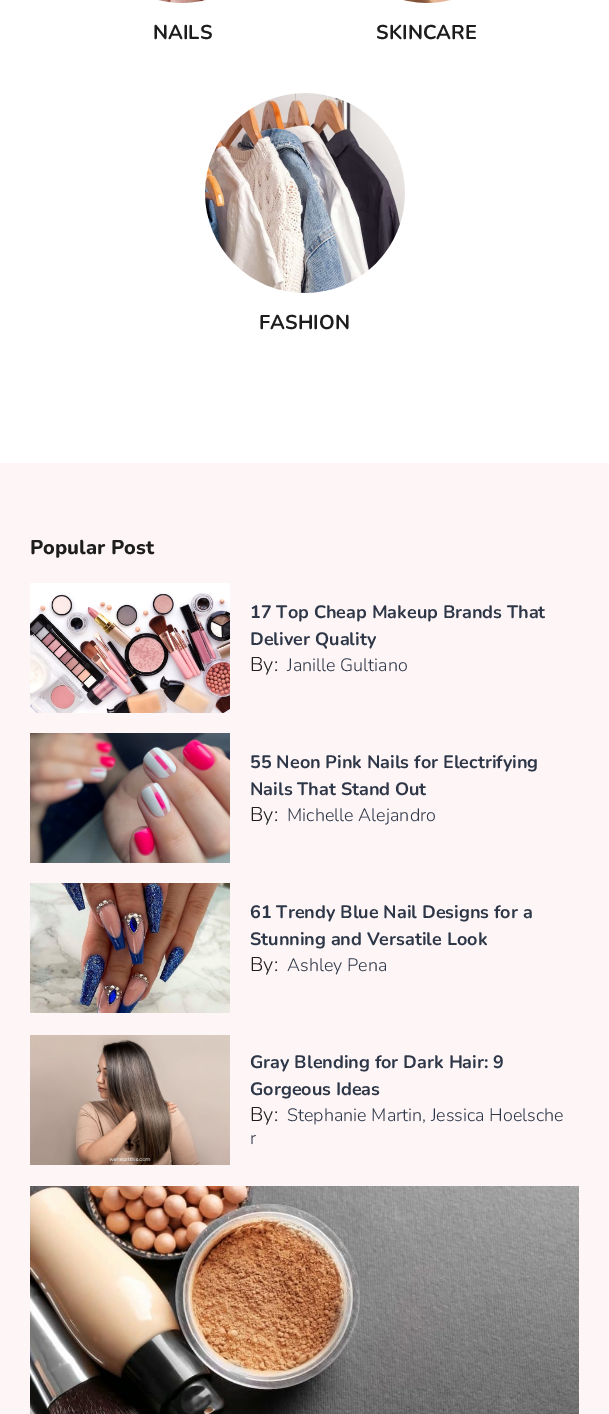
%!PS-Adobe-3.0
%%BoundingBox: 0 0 609 1414
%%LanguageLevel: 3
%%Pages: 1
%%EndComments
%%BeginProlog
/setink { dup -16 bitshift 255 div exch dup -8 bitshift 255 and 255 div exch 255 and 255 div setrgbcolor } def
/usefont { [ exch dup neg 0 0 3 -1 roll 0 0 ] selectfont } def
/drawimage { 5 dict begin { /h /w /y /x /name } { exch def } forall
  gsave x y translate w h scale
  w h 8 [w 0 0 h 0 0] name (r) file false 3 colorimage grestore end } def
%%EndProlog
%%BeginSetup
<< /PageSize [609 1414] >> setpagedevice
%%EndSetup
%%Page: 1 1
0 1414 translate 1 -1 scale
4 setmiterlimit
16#FFFFFF setink
0 0 609 1414 rectfill
(img1.raw) 158 0 48 3 drawimage
/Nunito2-ExtraLight 20 usefont
16#1D1D1D setink
153 39 moveto (NAILS) show
(img2.raw) 403 0 48 3 drawimage
376 39 moveto (SKINCARE) show
(img3.raw) 205 93 200 200 drawimage
259 329 moveto (FASHION) show
16#FEF5F6 setink
0 463 609 951 rectfill
/Nunito-ExtraLight 20 usefont
16#1D1D1D setink
30 554 moveto (Popular Post) show
(img4.raw) 30 583 200 130 drawimage
/Nunito2-ExtraLight 18 usefont
16#2D3748 setink
250 618 moveto (17 Top Cheap Makeup Brands That) show
250 645 moveto (Deliver Quality) show
/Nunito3-ExtraLight 20 usefont
16#1D1D1D setink
250 671 moveto (By:) show
/Nunito3-ExtraLight 18 usefont
16#2D3748 setink
287 671 moveto (Janille Gultiano) show
(img5.raw) 30 733 200 130 drawimage
/Nunito2-ExtraLight 18 usefont
250 768 moveto (55 Neon Pink Nails for Electrifying) show
250 795 moveto (Nails That Stand Out) show
/Nunito3-ExtraLight 20 usefont
16#1D1D1D setink
250 821 moveto (By:) show
/Nunito3-ExtraLight 18 usefont
16#2D3748 setink
287 821 moveto (Michelle Alejandro) show
(img6.raw) 30 883 200 130 drawimage
/Nunito2-ExtraLight 18 usefont
250 918 moveto (61 Trendy Blue Nail Designs for a) show
250 945 moveto (Stunning and Versatile Look) show
/Nunito3-ExtraLight 20 usefont
16#1D1D1D setink
250 971 moveto (By:) show
/Nunito3-ExtraLight 18 usefont
16#2D3748 setink
287 971 moveto (Ashley Pena) show
(img7.raw) 30 1035 200 130 drawimage
/Nunito2-ExtraLight 18 usefont
250 1068 moveto (Gray Blending for Dark Hair: 9) show
250 1095 moveto (Gorgeous Ideas) show
/Nunito3-ExtraLight 20 usefont
16#1D1D1D setink
250 1121 moveto (By:) show
/Nunito3-ExtraLight 18 usefont
16#2D3748 setink
287 1121 moveto (Stephanie Martin, Jessica Hoelsche) show
250 1144 moveto (r) show
(img8.raw) 30 1186 549 228 drawimage
showpage
%%EOF
